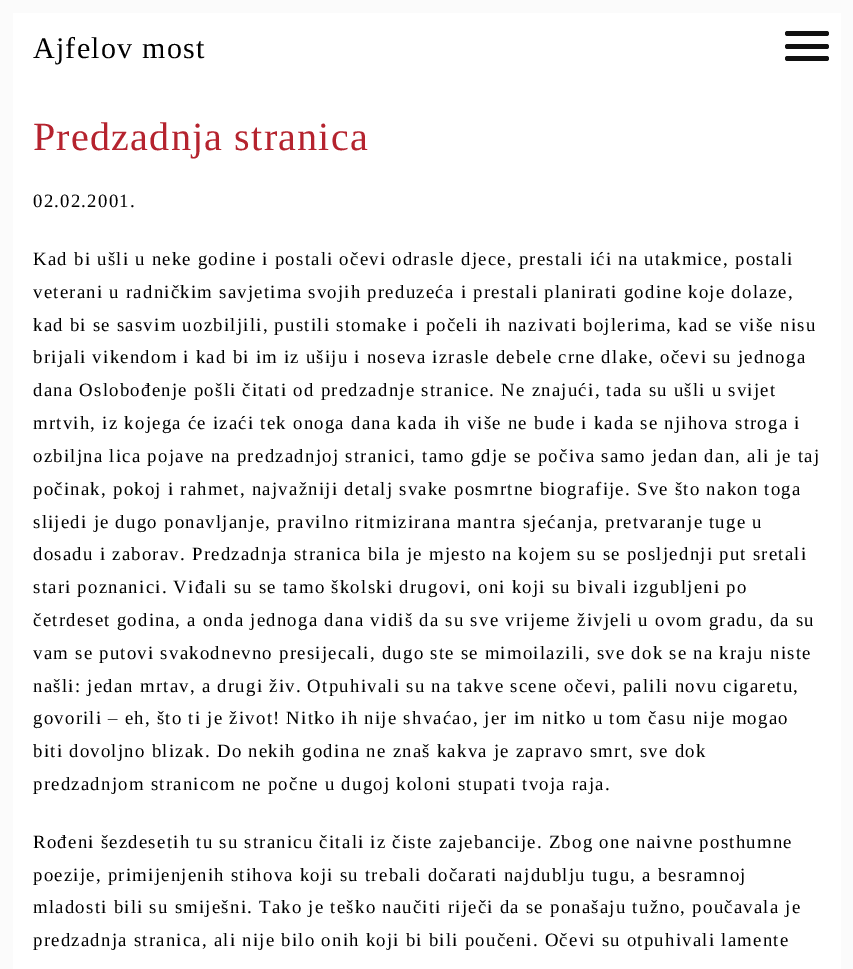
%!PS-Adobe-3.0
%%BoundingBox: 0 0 853 969
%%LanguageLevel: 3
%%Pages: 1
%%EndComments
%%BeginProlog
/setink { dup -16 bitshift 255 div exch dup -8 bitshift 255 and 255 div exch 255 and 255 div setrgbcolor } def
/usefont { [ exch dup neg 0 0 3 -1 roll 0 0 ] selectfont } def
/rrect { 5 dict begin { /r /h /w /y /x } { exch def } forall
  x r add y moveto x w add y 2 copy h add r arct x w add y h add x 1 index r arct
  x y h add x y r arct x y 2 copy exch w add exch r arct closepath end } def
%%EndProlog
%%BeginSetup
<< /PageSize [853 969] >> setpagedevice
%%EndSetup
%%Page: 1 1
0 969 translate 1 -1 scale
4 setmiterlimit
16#FBFBFB setink
0 0 853 969 rectfill
16#FFFFFF setink
13 13 828 956 rectfill
16#111111 setink
785 44 44 5 2.5 rrect fill
785 31 44 5 2.5 rrect fill
785 56 44 5 2.5 rrect fill
/LiberationSerif-Regular 30 usefont
16#000000 setink
33 58 moveto 1.25 0 (Ajfelov most) ashow
/LiberationSerif-Regular 40 usefont
16#B5232E setink
33 150 moveto 1.25 0 (Predzadnja stranica) ashow
/LiberationSerif-Regular 18.75 usefont
16#000000 setink
33 207 moveto 1.25 0 (02.02.2001.) ashow
33 265 moveto 1.25 0 (Kad bi ušli u neke godine i postali očevi odrasle djece, prestali ići na utakmice, postali) ashow
33 298 moveto 1.25 0 (veterani u radničkim savjetima svojih preduzeća i prestali planirati godine koje dolaze,) ashow
33 331 moveto 1.25 0 (kad bi se sasvim uozbiljili, pustili stomake i počeli ih nazivati bojlerima, kad se više nisu) ashow
33 363 moveto 1.25 0 (brijali vikendom i kad bi im iz ušiju i noseva izrasle debele crne dlake, očevi su jednoga) ashow
33 396 moveto 1.25 0 (dana Oslobođenje pošli čitati od predzadnje stranice. Ne znajući, tada su ušli u svijet) ashow
33 429 moveto 1.25 0 (mrtvih, iz kojega će izaći tek onoga dana kada ih više ne bude i kada se njihova stroga i) ashow
33 462 moveto 1.25 0 (ozbiljna lica pojave na predzadnjoj stranici, tamo gdje se počiva samo jedan dan, ali je taj) ashow
33 495 moveto 1.25 0 (počinak, pokoj i rahmet, najvažniji detalj svake posmrtne biografije. Sve što nakon toga) ashow
33 528 moveto 1.25 0 (slijedi je dugo ponavljanje, pravilno ritmizirana mantra sjećanja, pretvaranje tuge u) ashow
33 560 moveto 1.25 0 (dosadu i zaborav. Predzadnja stranica bila je mjesto na kojem su se posljednji put sretali) ashow
33 593 moveto 1.25 0 (stari poznanici. Viđali su se tamo školski drugovi, oni koji su bivali izgubljeni po) ashow
33 626 moveto 1.25 0 (četrdeset godina, a onda jednoga dana vidiš da su sve vrijeme živjeli u ovom gradu, da su) ashow
33 659 moveto 1.25 0 (vam se putovi svakodnevno presijecali, dugo ste se mimoilazili, sve dok se na kraju niste) ashow
33 692 moveto 1.25 0 (našli: jedan mrtav, a drugi živ. Otpuhivali su na takve scene očevi, palili novu cigaretu,) ashow
33 724 moveto 1.25 0 (govorili – eh, što ti je život! Nitko ih nije shvaćao, jer im nitko u tom času nije mogao) ashow
33 757 moveto 1.25 0 (biti dovoljno blizak. Do nekih godina ne znaš kakva je zapravo smrt, sve dok) ashow
33 790 moveto 1.25 0 (predzadnjom stranicom ne počne u dugoj koloni stupati tvoja raja.) ashow
33 848 moveto 1.25 0 (Rođeni šezdesetih tu su stranicu čitali iz čiste zajebancije. Zbog one naivne posthumne) ashow
33 881 moveto 1.25 0 (poezije, primijenjenih stihova koji su trebali dočarati najdublju tugu, a besramnoj) ashow
33 913 moveto 1.25 0 (mladosti bili su smiješni. Tako je teško naučiti riječi da se ponašaju tužno, poučavala je) ashow
33 946 moveto 1.25 0 (predzadnja stranica, ali nije bilo onih koji bi bili poučeni. Očevi su otpuhivali lamente) ashow
showpage
%%EOF
